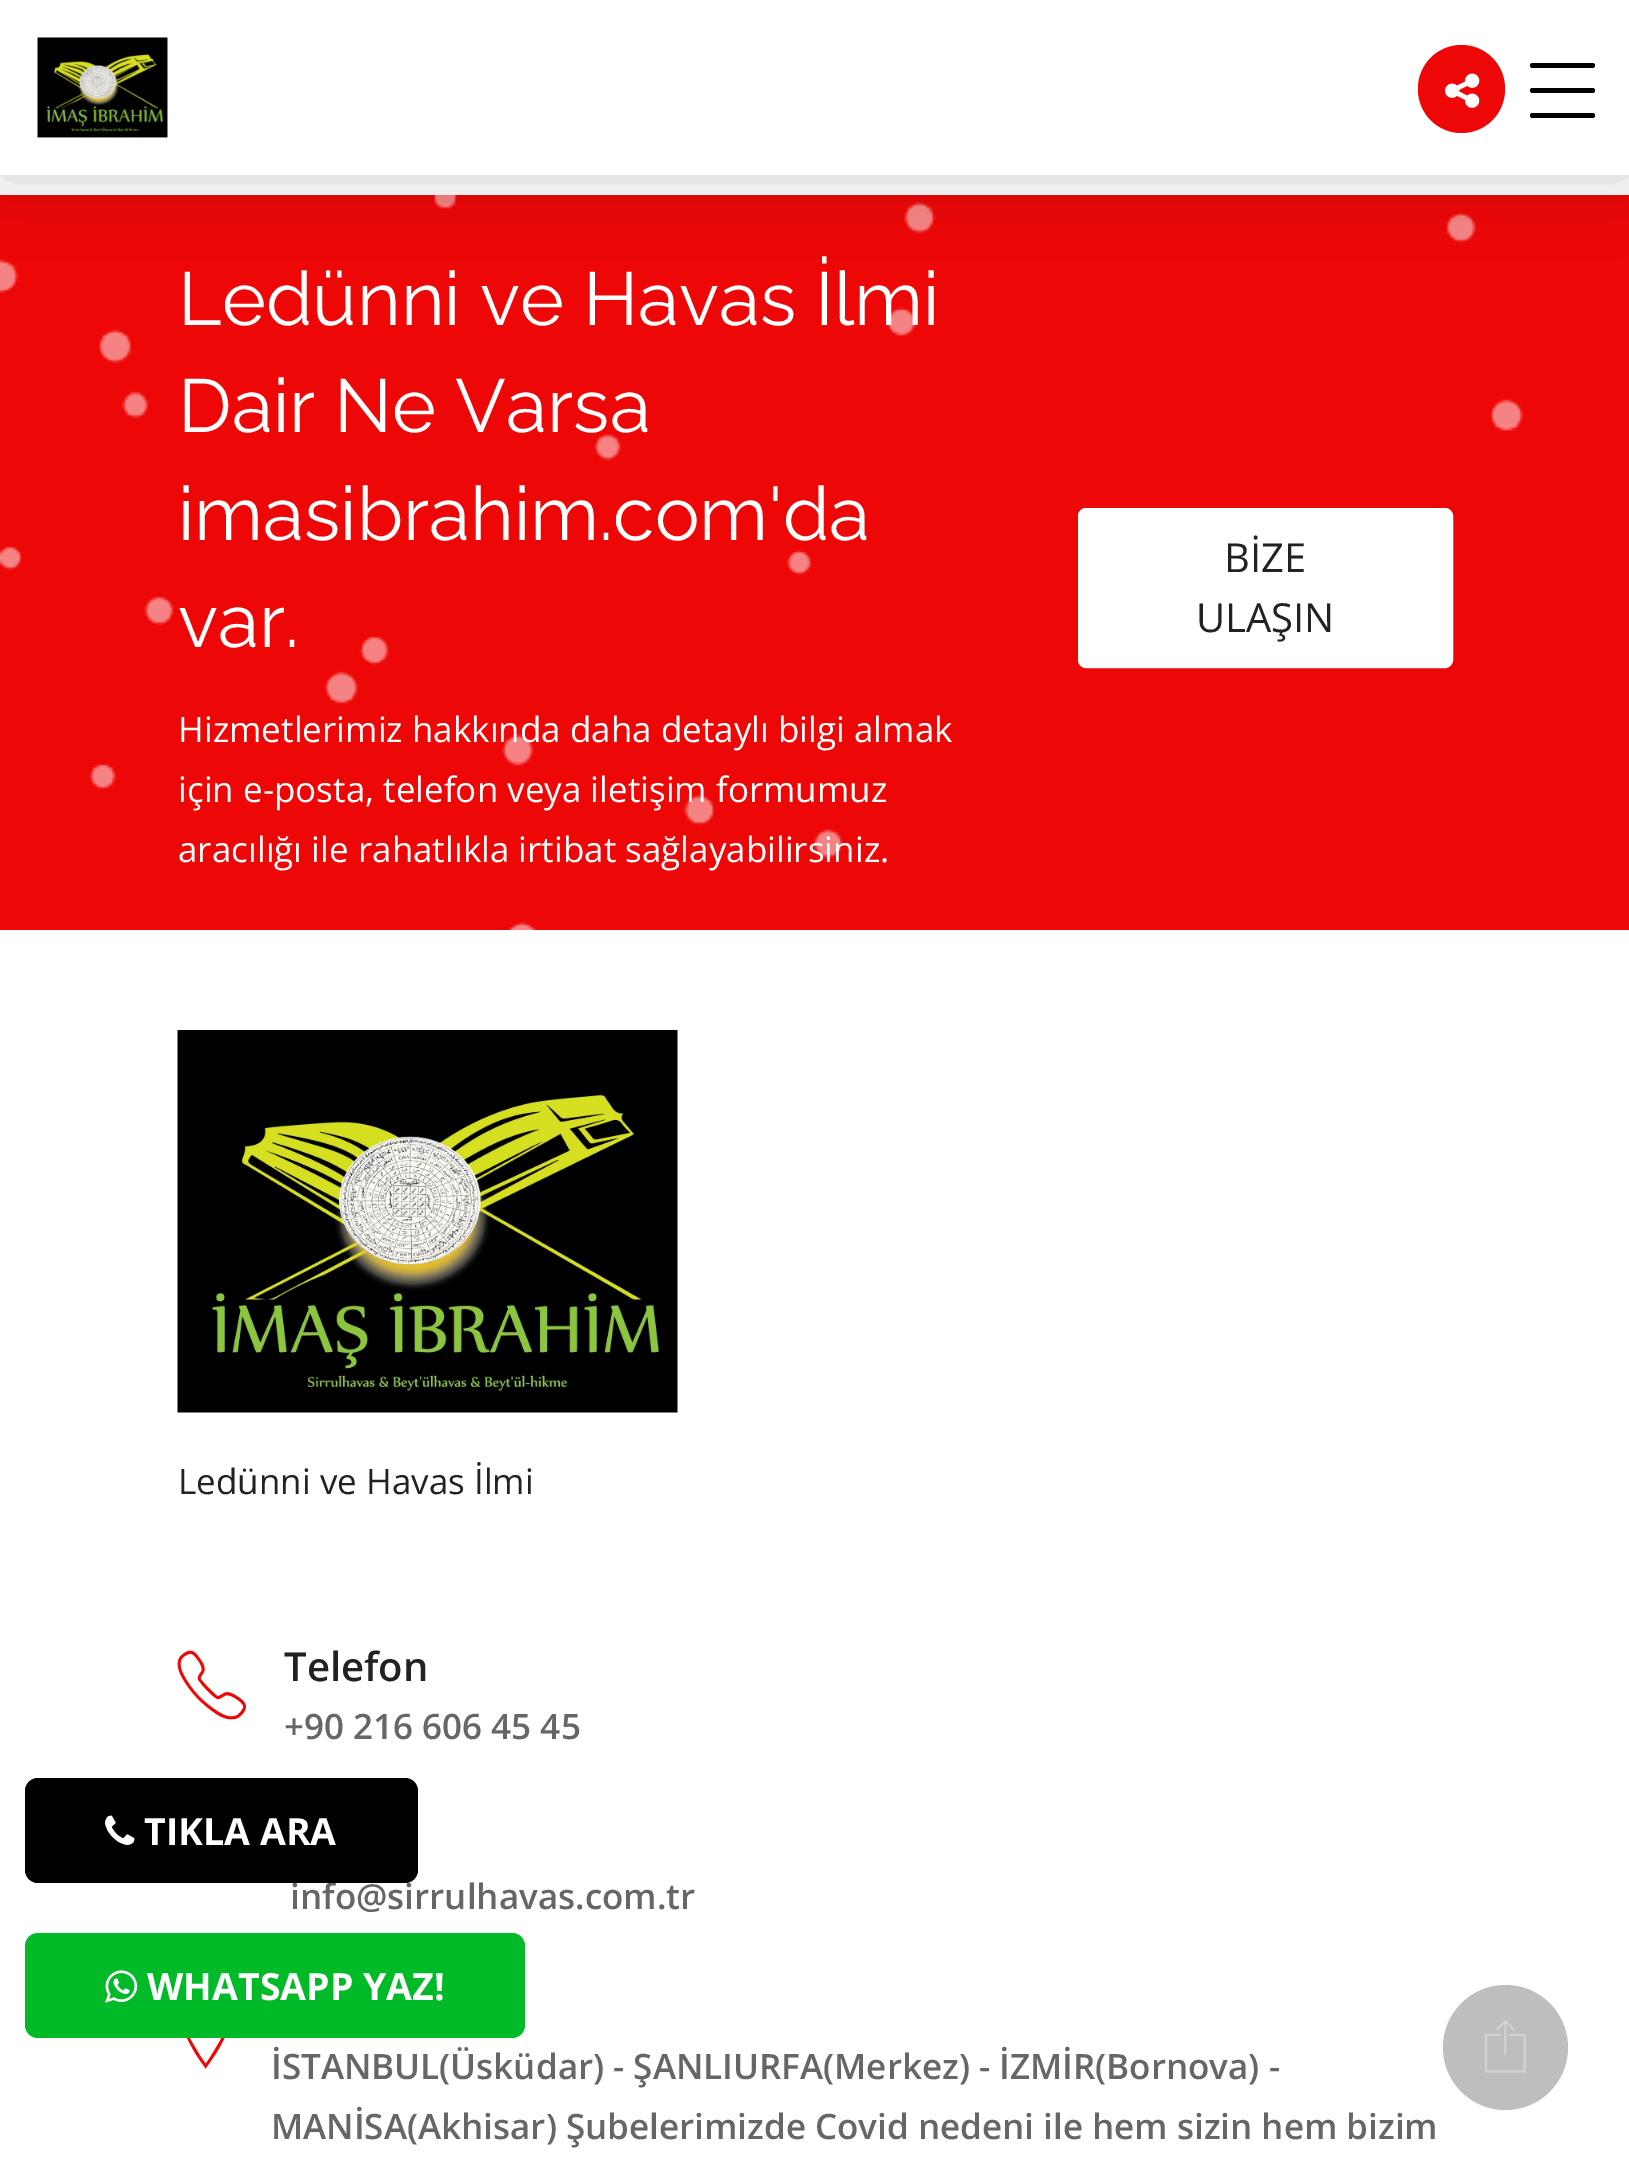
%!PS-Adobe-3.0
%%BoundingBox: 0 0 1629 2172
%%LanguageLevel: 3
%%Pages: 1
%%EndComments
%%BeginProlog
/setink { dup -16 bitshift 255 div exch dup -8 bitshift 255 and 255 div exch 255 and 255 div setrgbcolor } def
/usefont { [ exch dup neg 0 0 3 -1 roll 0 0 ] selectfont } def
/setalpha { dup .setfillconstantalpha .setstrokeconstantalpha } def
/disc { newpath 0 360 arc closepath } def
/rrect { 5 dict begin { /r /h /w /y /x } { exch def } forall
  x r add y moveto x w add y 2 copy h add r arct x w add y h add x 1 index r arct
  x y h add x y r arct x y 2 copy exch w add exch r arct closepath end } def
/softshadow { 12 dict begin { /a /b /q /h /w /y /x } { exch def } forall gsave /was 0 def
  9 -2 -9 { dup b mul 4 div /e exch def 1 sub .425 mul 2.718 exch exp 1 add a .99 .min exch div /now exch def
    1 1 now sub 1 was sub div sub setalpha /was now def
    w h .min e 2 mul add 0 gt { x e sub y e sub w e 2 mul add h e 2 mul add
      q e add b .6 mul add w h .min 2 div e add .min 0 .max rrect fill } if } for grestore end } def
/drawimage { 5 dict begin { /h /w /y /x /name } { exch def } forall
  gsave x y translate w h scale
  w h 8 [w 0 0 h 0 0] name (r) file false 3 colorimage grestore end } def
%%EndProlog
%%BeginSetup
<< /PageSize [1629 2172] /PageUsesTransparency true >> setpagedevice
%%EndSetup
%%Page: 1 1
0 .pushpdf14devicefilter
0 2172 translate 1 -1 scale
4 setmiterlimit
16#FFFFFF setink
0 0 1629 2172 rectfill
16#ED0707 setink
0 195 1629 735 rectfill
(img3.raw) 0 195 1524 735 drawimage
16#000000 setink
0 0 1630 175 0 37.5 0.2 softshadow
16#FFFFFF setink
0 0 1629 175 rectfill
(img1.raw) 37 37 131 101 drawimage
16#000000 setink
1530 63 65 5 2.5 rrect fill
1530 88 65 5 2.5 rrect fill
1530 113 65 5 2.5 rrect fill
16#ED0707 setink
1418 45 87 88 43.5 rrect fill
(img2.raw) 1445 73 35 35 drawimage
/Raleway-Regular 75 usefont
16#FFFFFF setink
[
    [(Ledünni ve Havas İlmi) 178 325]
    [(Dair Ne Varsa) 178 432]
    [(imasibrahim.com'da) 178 540]
    [(var.) 178 647]
] { aload pop moveto show } forall
/OpenSans-Regular 35 usefont
[
    [(Hizmetlerimiz hakkında daha detaylı bilgi almak) 178 742]
    [(için e-posta, telefon veya iletişim formumuz) 178 802]
    [(aracılığı ile rahatlıkla irtibat sağlayabilirsiniz.) 178 862]
] { aload pop moveto show } forall
1079.5 509.5 372 157 6.5 rrect gsave fill grestore
3 setlinewidth
stroke
/OpenSans-Regular 40 usefont
16#222222 setink
1224 572 moveto (BİZE) show
1196 632 moveto (ULAŞIN) show
/OpenSans-SemiBold 35 usefont
16#666666 setink
290 1909 moveto (info@sirrulhavas.com.tr) show
16#000000 setink
25 1778 393 105 13 rrect fill
(img4.raw) 105 1815 30 30 drawimage
/OpenSans-Bold 37.5 usefont
16#FFFFFF setink
144 1845 moveto (TIKLA ARA) show
16#00BA28 setink
25 1933 500 105 13 rrect fill
(img5.raw) 105 1970 33 33 drawimage
16#FFFFFF setink
147 2000 moveto (WHATSAPP YAZ!) show
(img6.raw) 177 1030 501 383 drawimage
/OpenSans-Regular 35 usefont
16#222222 setink
178 1494 moveto (Ledünni ve Havas İlmi) show
(img7.raw) 177 1650 70 70 drawimage
/OpenSans-SemiBold 40 usefont
284 1681 moveto (Telefon) show
/OpenSans-SemiBold 35 usefont
16#666666 setink
284 1739 moveto (+90 216 606 45 45) show
(img8.raw) 186 2038 39 31 drawimage
271 2079 moveto (İSTANBUL\(Üsküdar\) - ŞANLIURFA\(Merkez\) - İZMİR\(Bornova\) -) show
271 2139 moveto (MANİSA\(Akhisar\) Şubelerimizde Covid nedeni ile hem sizin hem bizim) show
16#BEBEBE setink
1505.5 2047.5 62.5 disc fill
(img9.raw) 1485 2020 41 53 drawimage
.poppdf14devicefilter showpage
%%EOF
